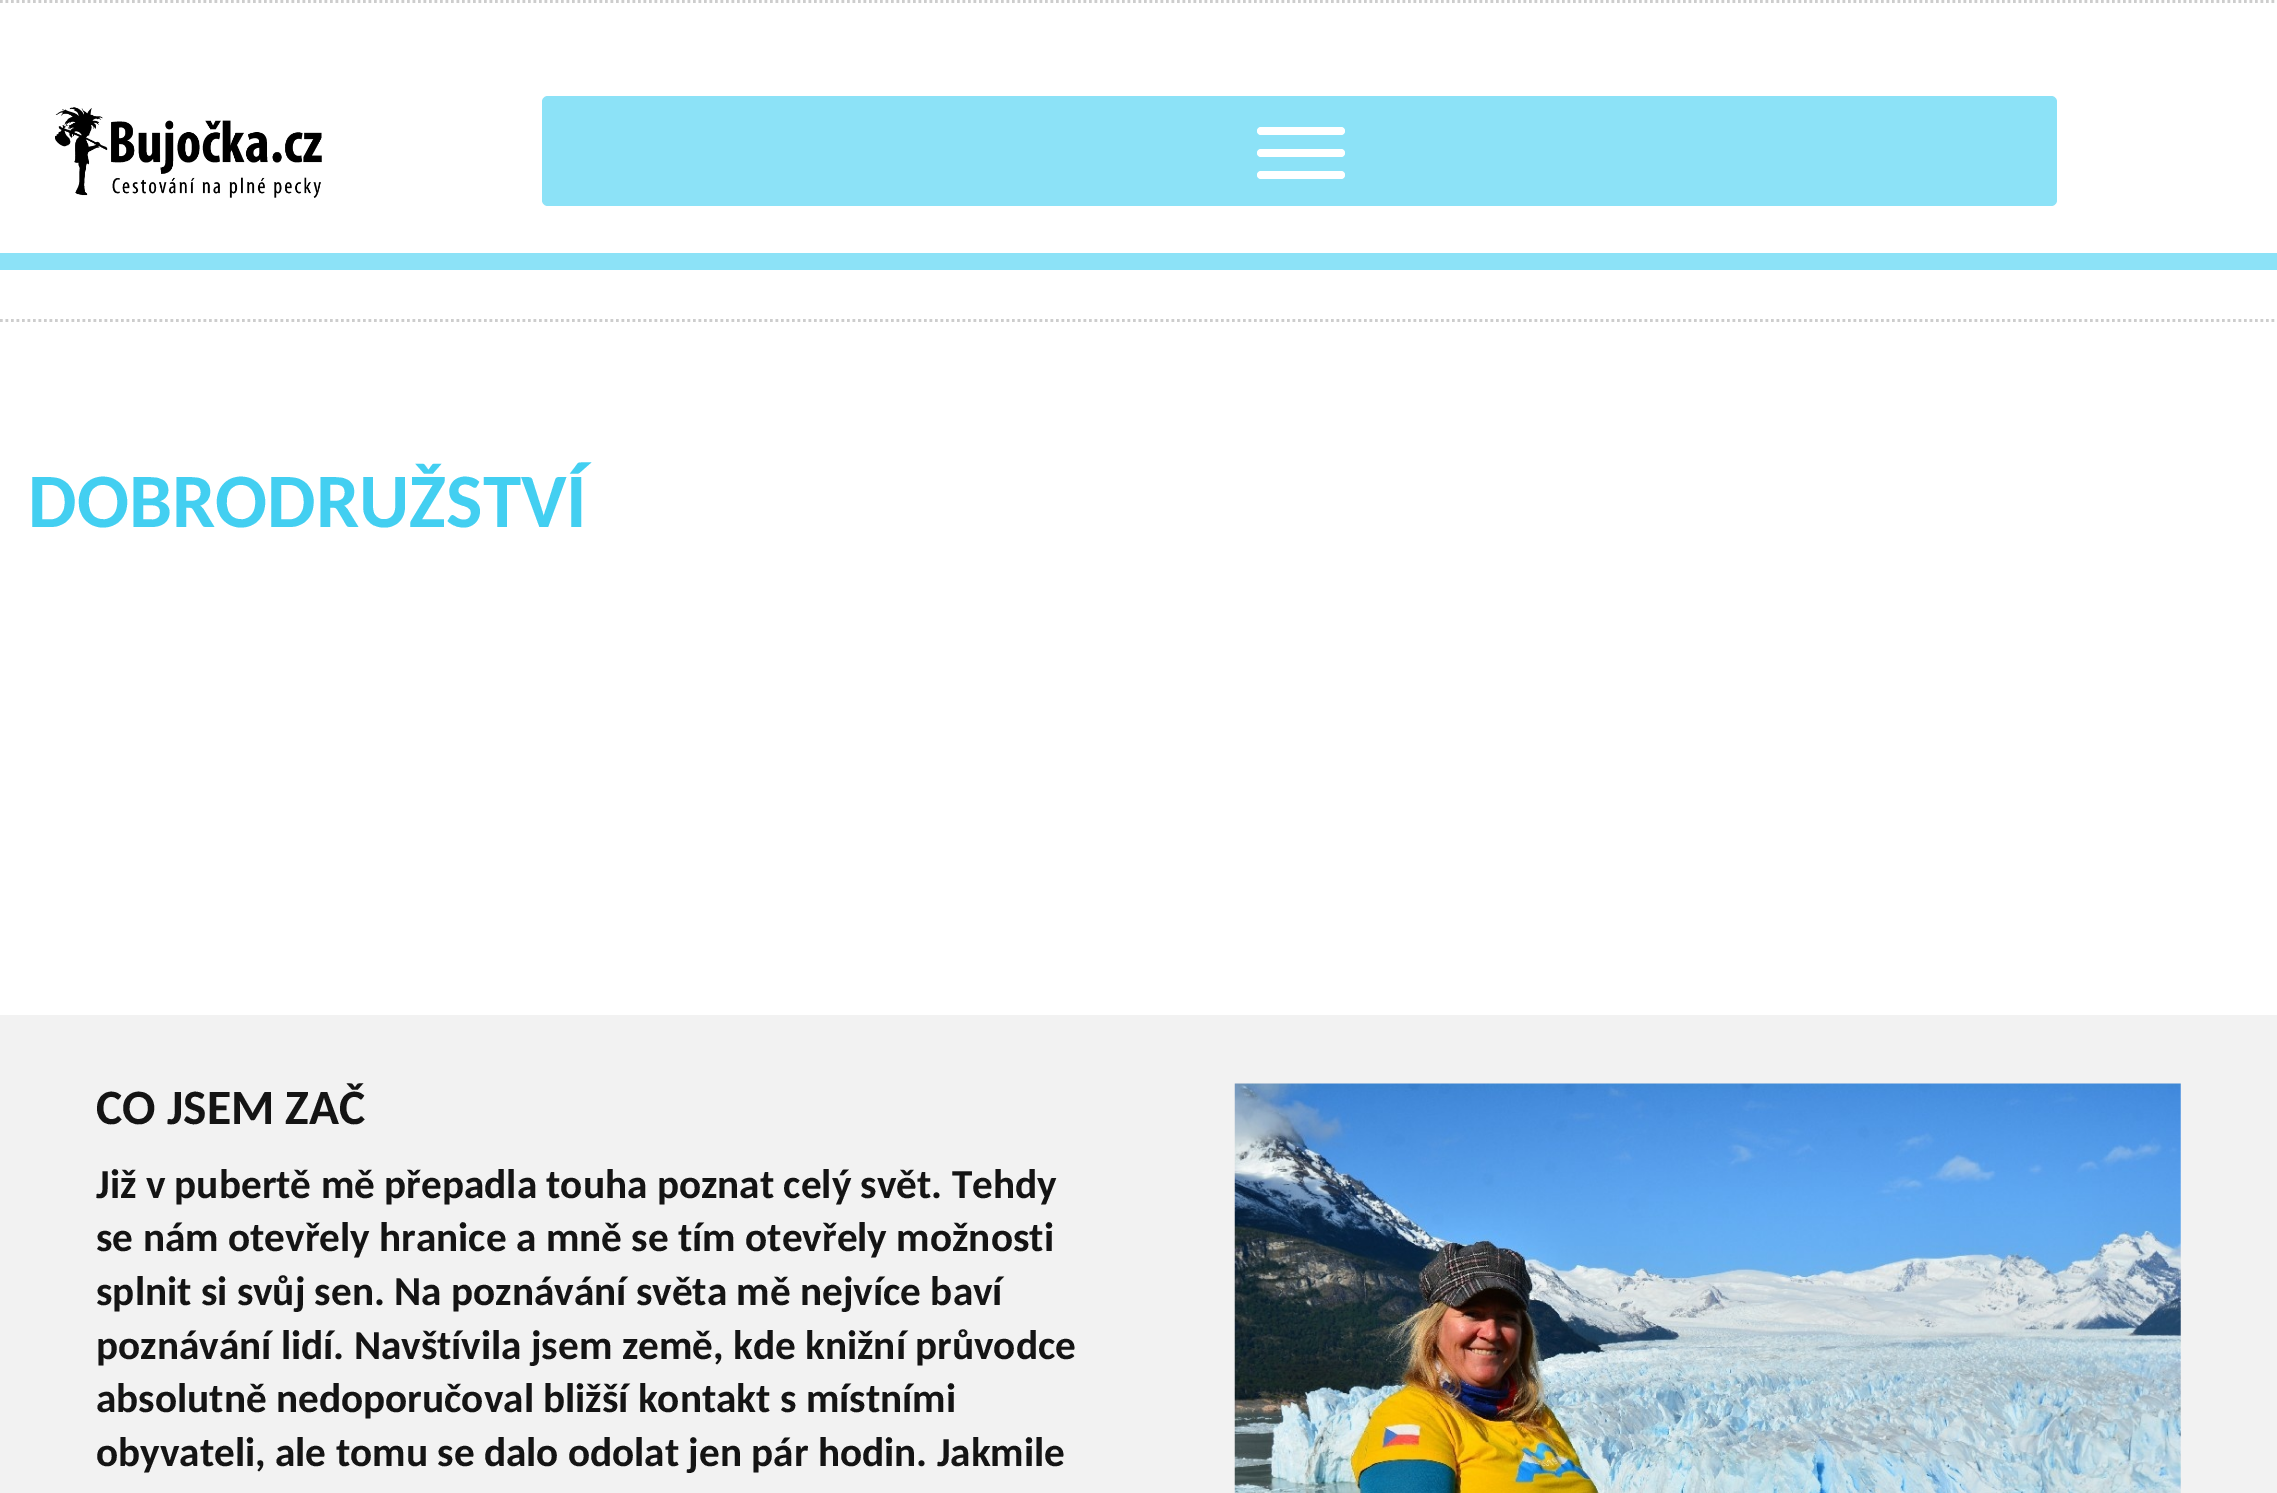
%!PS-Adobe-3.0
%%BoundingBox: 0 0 2277 1493
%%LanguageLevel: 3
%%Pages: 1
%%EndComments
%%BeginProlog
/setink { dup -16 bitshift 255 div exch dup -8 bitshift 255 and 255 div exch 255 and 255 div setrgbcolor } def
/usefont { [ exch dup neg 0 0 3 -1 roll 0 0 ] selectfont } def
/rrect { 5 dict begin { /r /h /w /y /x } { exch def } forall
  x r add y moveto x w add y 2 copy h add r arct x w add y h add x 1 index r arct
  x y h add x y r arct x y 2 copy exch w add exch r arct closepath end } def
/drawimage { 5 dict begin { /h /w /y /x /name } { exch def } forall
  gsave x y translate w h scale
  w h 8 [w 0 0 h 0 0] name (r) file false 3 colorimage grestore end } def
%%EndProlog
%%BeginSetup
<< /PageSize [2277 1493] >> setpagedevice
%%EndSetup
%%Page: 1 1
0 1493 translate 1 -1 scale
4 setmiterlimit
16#FFFFFF setink
0 0 2277 1493 rectfill
16#CDCDCD setink
2.8 setlinewidth
[2.75 2.75] 0 setdash
0 1.5 moveto 2277 1.5 lineto stroke
0 320.5 moveto 2277 320.5 lineto stroke
16#8CE2F7 setink
0 253 2277 17 rectfill
(img1.raw) 55 107 267 91 drawimage
542 96 1515 110 6 rrect fill
16#FFFFFF setink
1257 127 88 8 4 rrect fill
1257 149 88 8 4 rrect fill
1257 171 88 8 4 rrect fill
/Carlito-Bold 77 usefont
16#43CFF1 setink
28 527 moveto (DOBRODRUŽSTVÍ) show
16#F2F2F2 setink
0 1015 2277 478 rectfill
/Carlito-Bold 49.5 usefont
16#141414 setink
96 1124 moveto (CO JSEM ZAČ) show
/Carlito-Bold 41.25 usefont
[
    [(Již v pubertě mě přepadla touha poznat celý svět. Tehdy) 96 1198]
    [(se nám otevřely hranice a mně se tím otevřely možnosti) 96 1251]
    [(splnit si svůj sen. Na poznávání světa mě nejvíce baví) 96 1305]
    [(poznávání lidí. Navštívila jsem země, kde knižní průvodce) 96 1359]
    [(absolutně nedoporučoval bližší kontakt s místními) 96 1412]
    [(obyvateli, ale tomu se dalo odolat jen pár hodin. Jakmile) 96 1466]
] { aload pop moveto show } forall
(img2.raw) 1234 1083 947 410 drawimage
showpage
%%EOF
